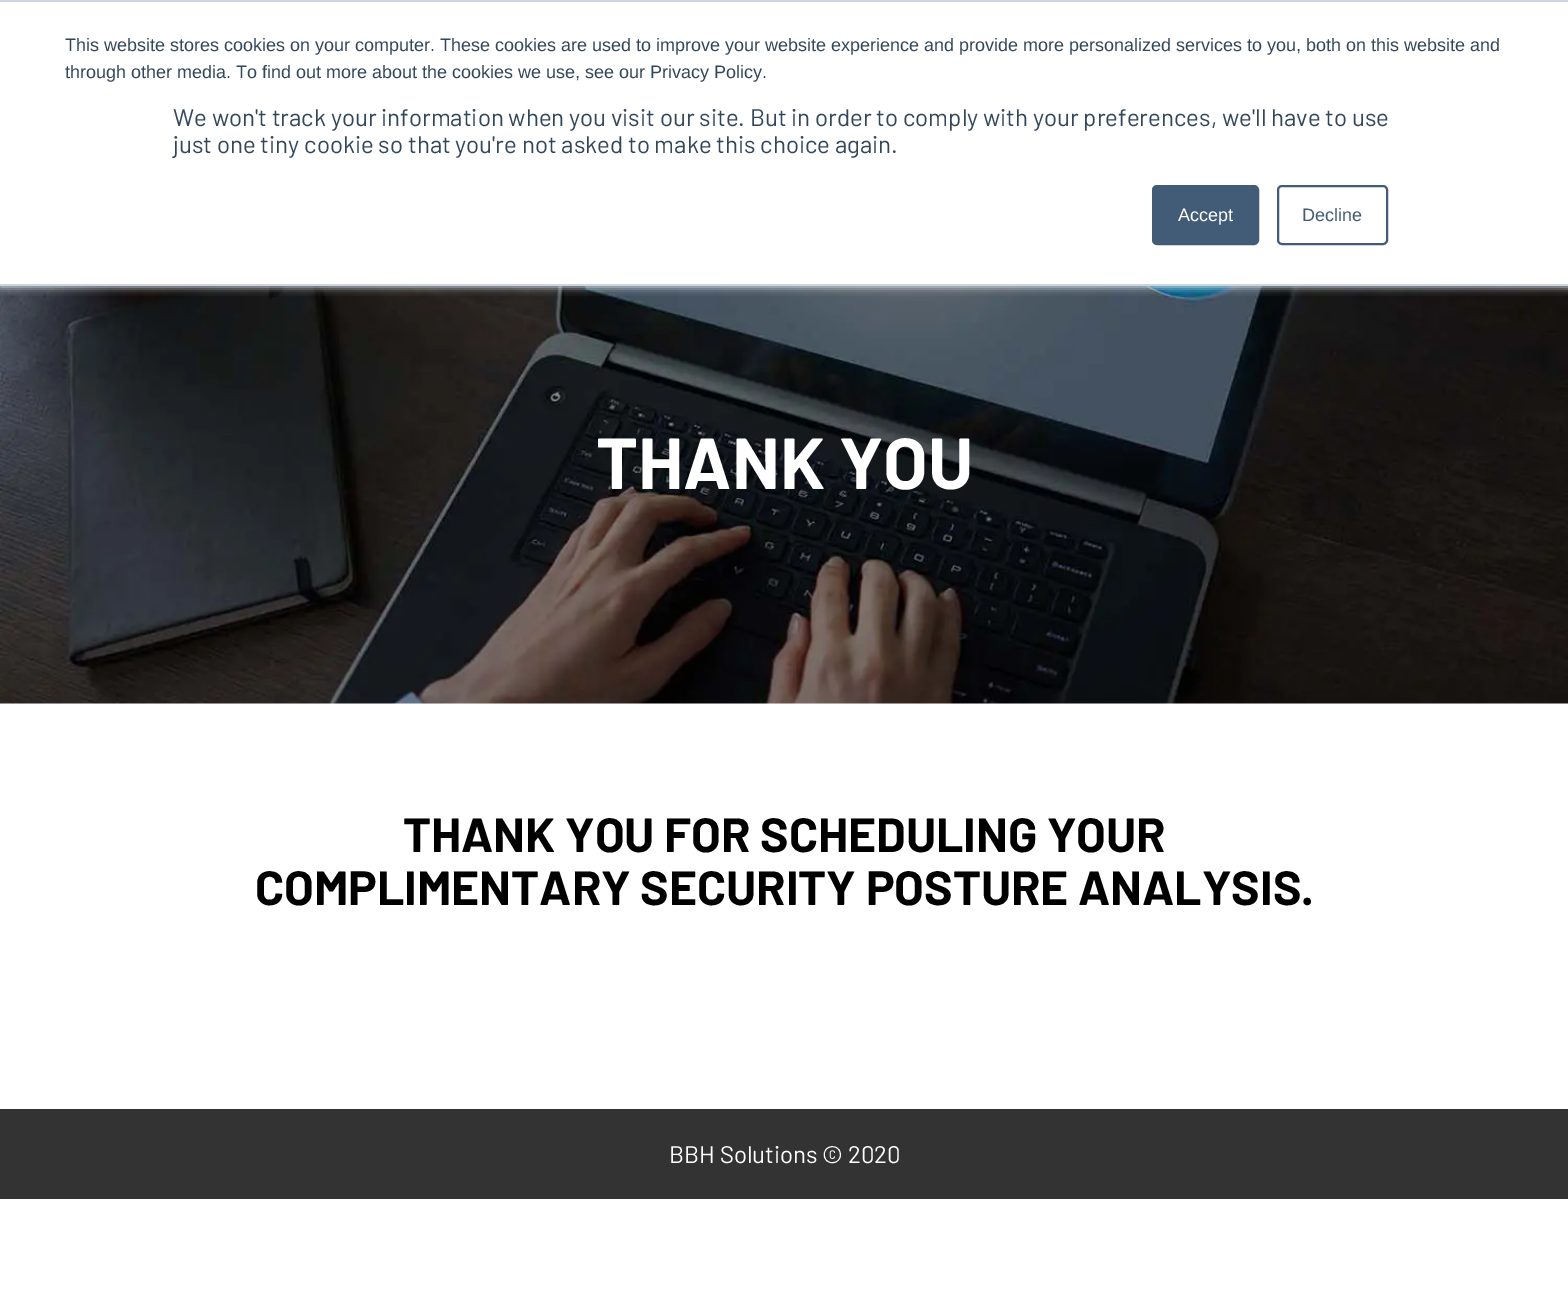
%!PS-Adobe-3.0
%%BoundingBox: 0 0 1568 1306
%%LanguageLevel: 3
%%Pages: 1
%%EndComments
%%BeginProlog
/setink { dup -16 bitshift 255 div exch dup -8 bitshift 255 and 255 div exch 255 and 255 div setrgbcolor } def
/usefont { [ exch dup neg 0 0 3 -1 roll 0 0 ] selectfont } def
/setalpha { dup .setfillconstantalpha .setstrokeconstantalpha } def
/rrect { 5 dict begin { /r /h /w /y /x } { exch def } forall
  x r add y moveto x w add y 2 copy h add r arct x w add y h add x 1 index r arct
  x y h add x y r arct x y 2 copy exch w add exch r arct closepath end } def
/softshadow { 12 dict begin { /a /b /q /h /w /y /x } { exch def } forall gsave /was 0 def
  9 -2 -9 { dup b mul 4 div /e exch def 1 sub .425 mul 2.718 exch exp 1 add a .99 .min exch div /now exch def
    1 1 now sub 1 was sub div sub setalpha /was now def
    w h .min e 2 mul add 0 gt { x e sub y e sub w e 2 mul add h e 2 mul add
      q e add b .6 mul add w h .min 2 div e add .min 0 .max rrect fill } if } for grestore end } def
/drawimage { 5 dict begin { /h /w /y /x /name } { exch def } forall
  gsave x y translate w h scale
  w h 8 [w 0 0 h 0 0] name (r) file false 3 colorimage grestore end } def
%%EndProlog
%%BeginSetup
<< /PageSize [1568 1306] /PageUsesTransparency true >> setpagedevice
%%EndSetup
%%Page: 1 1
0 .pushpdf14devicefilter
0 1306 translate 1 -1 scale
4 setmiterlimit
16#FFFFFF setink
0 0 1568 1306 rectfill
(img1.raw) 0 286 1568 418 drawimage
16#EAF0F6 setink
0 2 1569 285 0 4 1 softshadow
[
    [0 2 1568 282 16#FFFFFF]
    [0 0 1568 2 16#CBD6E2]
    [0 284 1568 2 16#CBD6E2]
] { aload pop setink rectfill } forall
/LiberationSans-Regular 18 usefont
16#33475B setink
65 51 moveto (This website stores cookies on your computer. These cookies are used to improve your website experience and provide more personalized services to you, both on this website and) show
65 78 moveto (through other media. To find out more about the cookies we use, see our Privacy Policy.) show
/Barlow-Regular 24 usefont
173 126 moveto (We won't track your information when you visit our site. But in order to comply with your preferences, we'll have to use) show
173 153 moveto (just one tiny cookie so that you're not asked to make this choice again.) show
16#425B76 setink
1153 186 105 58 4 rrect gsave fill grestore
2 setlinewidth
stroke
/LiberationSans-Regular 18 usefont
16#FFFFFF setink
1178 221 moveto (Accept) show
16#425B76 setink
1278 186 109 58 4 rrect stroke
1302 221 moveto (Decline) show
/Barlow-Bold 72 usefont
16#FFFFFF setink
596 489 moveto (THANK YOU) show
/Barlow-Bold 48 usefont
16#000000 setink
403 852 moveto (THANK YOU FOR SCHEDULING YOUR) show
255 905 moveto (COMPLIMENTARY SECURITY POSTURE ANALYSIS.) show
16#333333 setink
0 1109 1568 90 rectfill
/Barlow-Regular 24 usefont
16#FFFFFF setink
669 1163 moveto (BBH Solutions © 2020) show
.poppdf14devicefilter showpage
%%EOF
